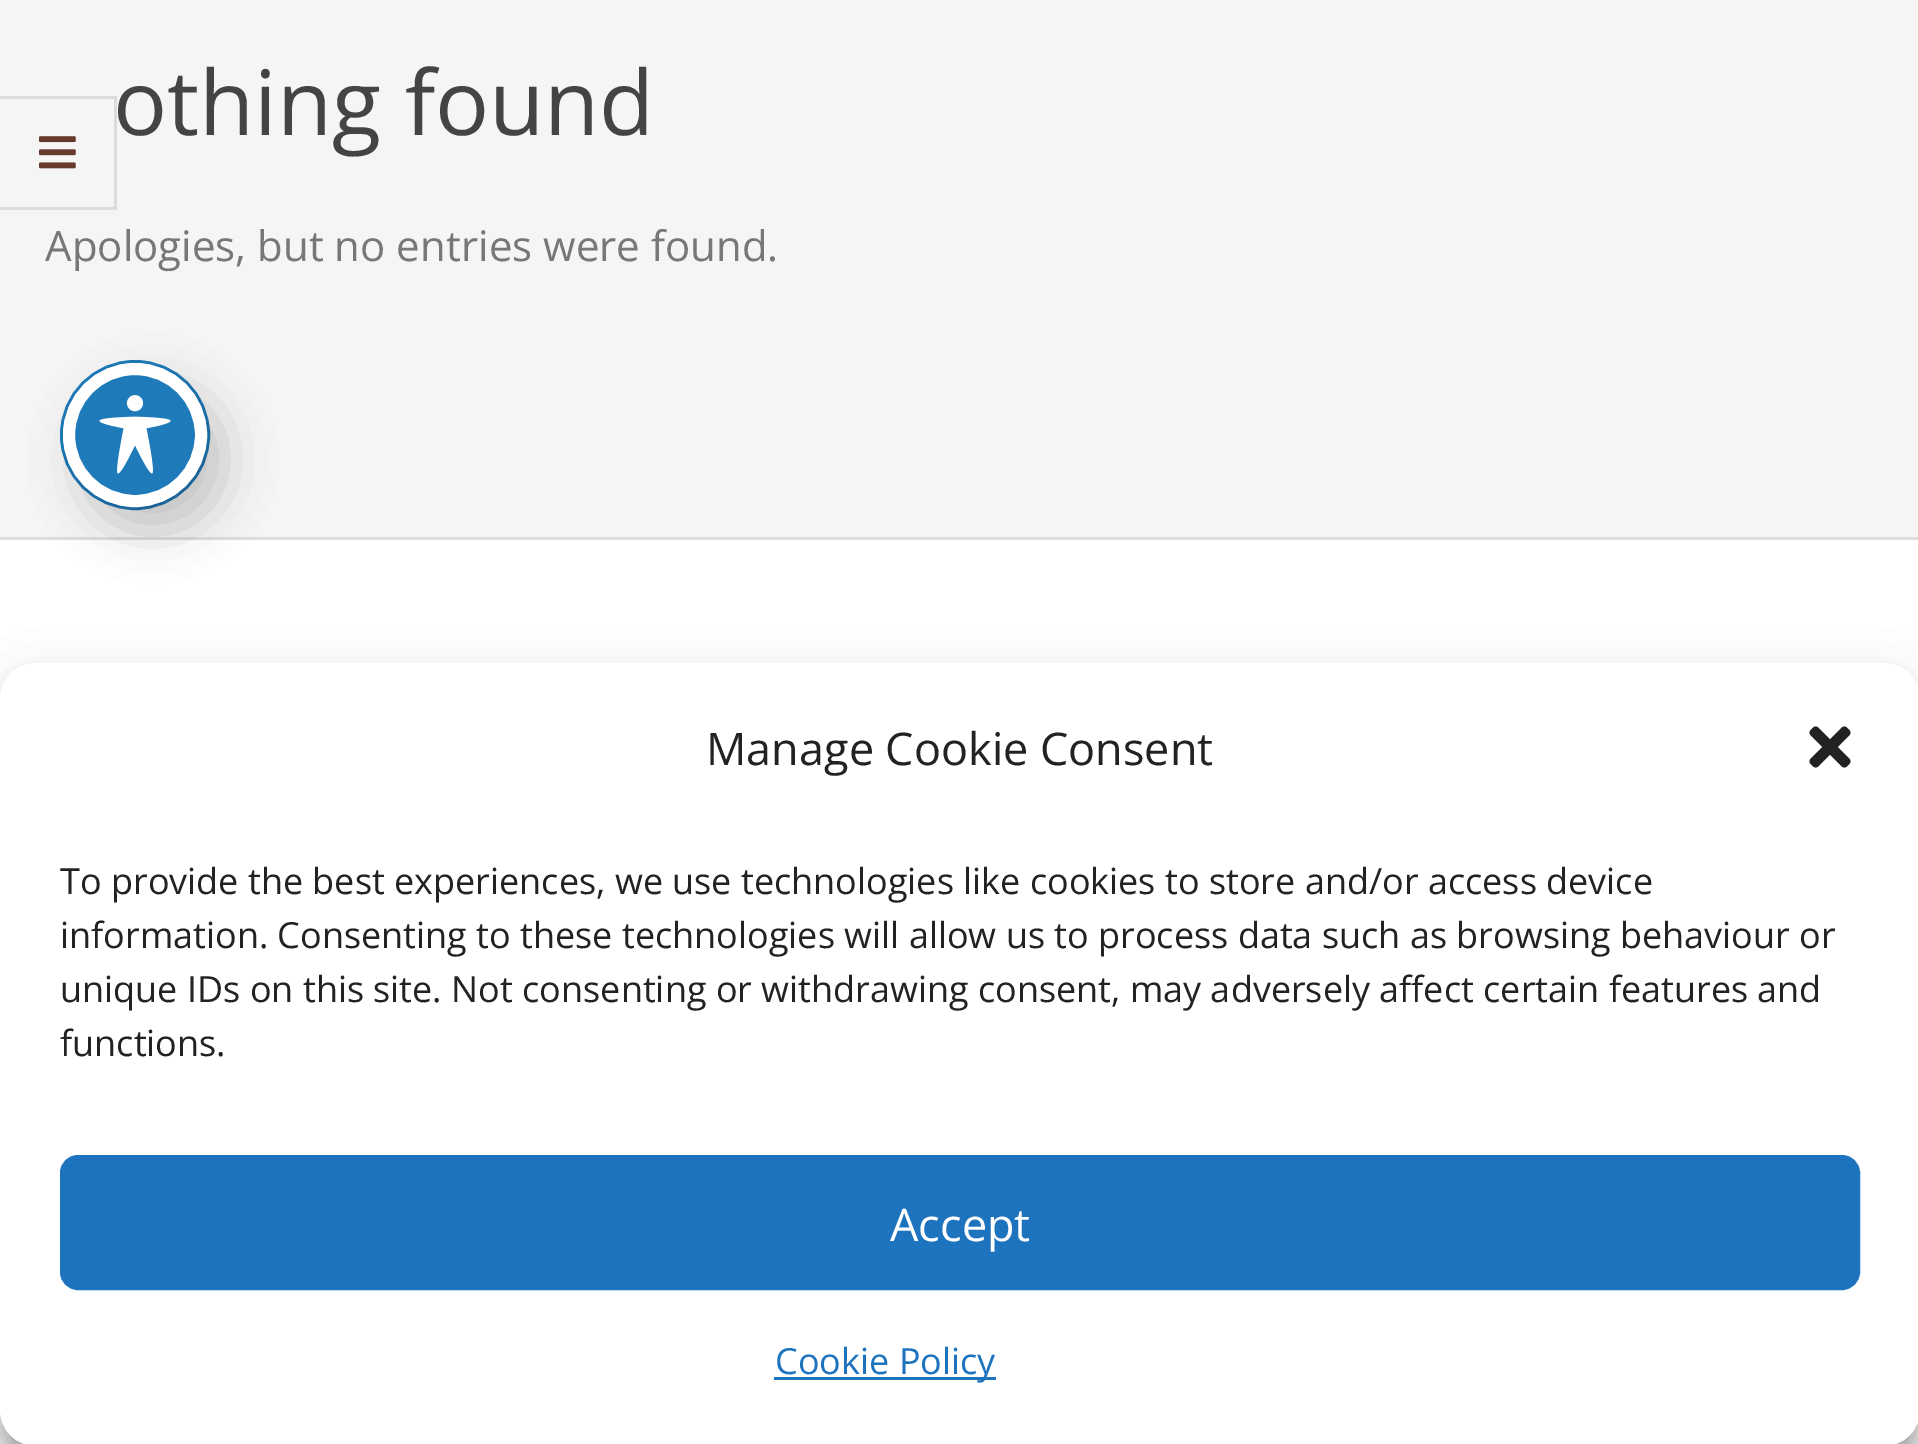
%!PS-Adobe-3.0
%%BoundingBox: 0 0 1918 1444
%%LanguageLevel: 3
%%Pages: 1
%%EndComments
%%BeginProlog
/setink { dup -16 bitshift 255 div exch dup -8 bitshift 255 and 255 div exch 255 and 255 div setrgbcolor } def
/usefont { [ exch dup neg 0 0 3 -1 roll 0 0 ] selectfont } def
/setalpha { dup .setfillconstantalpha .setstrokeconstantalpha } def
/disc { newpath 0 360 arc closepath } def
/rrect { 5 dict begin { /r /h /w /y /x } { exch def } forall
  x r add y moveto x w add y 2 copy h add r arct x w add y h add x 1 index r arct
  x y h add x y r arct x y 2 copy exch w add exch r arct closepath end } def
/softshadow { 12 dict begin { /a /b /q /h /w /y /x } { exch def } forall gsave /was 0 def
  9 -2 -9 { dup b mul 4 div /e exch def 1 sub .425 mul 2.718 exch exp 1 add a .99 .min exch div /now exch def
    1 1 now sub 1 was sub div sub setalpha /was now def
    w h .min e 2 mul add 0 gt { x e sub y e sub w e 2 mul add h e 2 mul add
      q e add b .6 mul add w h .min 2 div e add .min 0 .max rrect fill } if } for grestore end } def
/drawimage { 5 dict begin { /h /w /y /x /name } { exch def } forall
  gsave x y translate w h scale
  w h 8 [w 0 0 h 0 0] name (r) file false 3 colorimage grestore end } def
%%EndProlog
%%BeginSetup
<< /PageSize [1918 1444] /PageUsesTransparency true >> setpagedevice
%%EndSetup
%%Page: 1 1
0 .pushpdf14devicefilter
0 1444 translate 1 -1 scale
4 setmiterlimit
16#F5F5F5 setink
0 0 1918 1444 rectfill
/OpenSans-Regular 90 usefont
16#444444 setink
113 135 moveto (othing found) show
/OpenSans-Regular 42 usefont
16#777777 setink
45 261 moveto (Apologies, but no entries were found.) show
16#DDDDDD setink
0 96 moveto 117 96 lineto 114 99 lineto 0 99 lineto closepath fill
0.1 setalpha
16#000000 setink
117 96 moveto 117 210 lineto 114 207 lineto 114 99 lineto closepath fill
117 210 moveto 0 210 lineto 0 207 lineto 114 207 lineto closepath fill
1 setalpha
(img1.raw) 39 136 37 33 drawimage
[
    [0 540 1918 159 16#FFFFFF]
    [0 537 1918 3 16#DDDDDD]
    [0 1410 1918 34 16#FFFFFF]
] { aload pop setink rectfill } forall
16#1E7AB9 setink
3 setlinewidth
135 435 73.5 disc stroke
16#000000 setink
81 387 144 144 72 24 0.2 softshadow
16#1E7AB9 setink
135 435 66 disc gsave fill grestore
16#FFFFFF setink
12 setlinewidth
stroke
(img2.raw) 99 395 72 79 drawimage
16#000000 setink
0 681 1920 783 36 9 0.23 softshadow
0 693 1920 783 36 30 0.19 softshadow
16#FFFFFF setink
0 663 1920 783 36 rrect fill
/OpenSans-Regular 45 usefont
16#222222 setink
706 765 moveto (Manage Cookie Consent) show
(img3.raw) 1809 726 42 42 drawimage
/OpenSans-Regular 36 usefont
[
    [(To provide the best experiences, we use technologies like cookies to store and/or access device) 60 894]
    [(information. Consenting to these technologies will allow us to process data such as browsing behaviour or) 60 948]
    [(unique IDs on this site. Not consenting or withdrawing consent, may adversely affect certain features and) 60 1002]
    [(functions.) 60 1056]
] { aload pop moveto show } forall
16#1E73BE setink
61.5 1156.5 1797 132 16.5 rrect gsave fill grestore
3 setlinewidth
stroke
/OpenSans-Regular 45 usefont
16#FFFFFF setink
890 1241 moveto (Accept) show
16#1E73BE setink
774 1377 222 3 rectfill
/OpenSans-Regular 36 usefont
775 1374 moveto (Cookie Policy) show
.poppdf14devicefilter showpage
%%EOF
